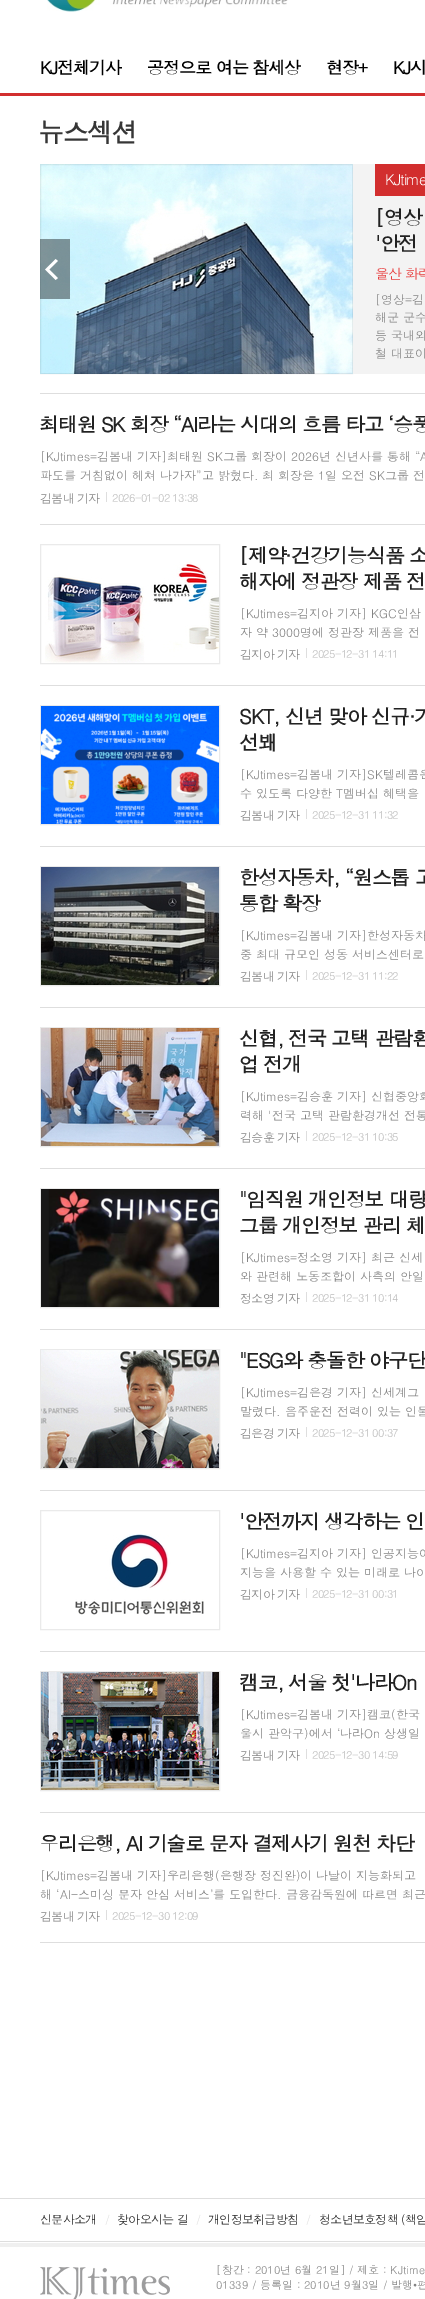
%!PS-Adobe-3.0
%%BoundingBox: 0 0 425 2299
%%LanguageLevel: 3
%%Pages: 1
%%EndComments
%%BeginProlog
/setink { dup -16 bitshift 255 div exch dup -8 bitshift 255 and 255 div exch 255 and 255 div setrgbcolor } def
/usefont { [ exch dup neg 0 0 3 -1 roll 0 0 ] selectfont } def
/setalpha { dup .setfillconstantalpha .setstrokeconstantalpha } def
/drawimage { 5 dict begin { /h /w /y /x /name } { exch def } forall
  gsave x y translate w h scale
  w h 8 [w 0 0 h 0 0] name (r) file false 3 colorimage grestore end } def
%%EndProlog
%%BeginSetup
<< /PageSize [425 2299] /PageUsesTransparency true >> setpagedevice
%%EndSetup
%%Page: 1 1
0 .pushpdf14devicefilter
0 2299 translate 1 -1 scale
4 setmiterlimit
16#FFFFFF setink
0 0 425 2299 rectfill
(img1.raw) 47 0 241 12 drawimage
16#D22E2E setink
0 93 425 3 rectfill
/Dotum-Bold 17 usefont
16#000000 setink
40 74 moveto -1 0 (KJ전체기사) ashow
147 74 moveto -1 0 (공정으로 여는 참세상) ashow
326 74 moveto -1 0 (현장+) ashow
393 74 moveto -1 0 (KJ시) ashow
/Dotum-Bold 26 usefont
16#363636 setink
38 142 moveto -1.5 0 (뉴스섹션) ashow
(img3.raw) 40 164 313 210 drawimage
0.07 setalpha
16#000000 setink
40.5 164.5 312 209 rectstroke
1 setalpha
(img2.raw) 40 239 30 60 drawimage
16#F3F3F3 setink
353 164 72 210 rectfill
16#D22E2E setink
375 164 50 32 rectfill
/Dotum-Regular 15 usefont
16#FFFFFF setink
385 185 moveto -1 0 (KJtime) ashow
/Dotum-Bold 20 usefont
16#222222 setink
375 225 moveto -1.2 0 ([영상) ashow
375 251 moveto -1.2 0 ('안전) ashow
/Dotum-Regular 14 usefont
16#E73F3F setink
375 279 moveto -1 0 (울산 화력) ashow
/Dotum-Regular 12 usefont
16#848484 setink
[
    [([영상=김) 375 304]
    [(해군 군수) 375 322]
    [(등 국내외) 375 340]
    [(철 대표이) 375 358]
] { aload pop moveto show } forall
16#DEDEDE setink
40 393 385 1 rectfill
40 524 385 1 rectfill
/Dotum-Bold 20 usefont
16#222222 setink
39 432 moveto -1.2 0 (최태원 SK 회장 “AI라는 시대의 흐름 타고 ‘승풍) ashow
/Dotum-Regular 12 usefont
16#848484 setink
40 461 moveto ([KJtimes=김봄내 기자]최태원 SK그룹 회장이 2026년 신년사를 통해 “A) show
40 480 moveto (파도를 거침없이 헤쳐 나가자”고 밝혔다. 최 회장은 1일 오전 SK그룹 전) show
40 503 moveto -0.75 0 (김봄내 기자) ashow
16#DEDEDE setink
106 492 1 10 rectfill
/Dotum-Regular 11 usefont
16#BBBBBB setink
112 502 moveto -0.7 0 (2026-01-02 13:38) ashow
16#DEDEDE setink
40 685 385 1 rectfill
16#EAEAEA setink
40.5 544.5 179 119 rectstroke
(img4.raw) 45 562 174 101 drawimage
/Dotum-Bold 20 usefont
16#222222 setink
239 563 moveto -1.2 0 ([제약·건강기능식품 소) ashow
239 589 moveto -1.2 0 (해자에 정관장 제품 전) ashow
/Dotum-Regular 12 usefont
16#848484 setink
240 618 moveto ([KJtimes=김지아 기자] KGC인삼) show
240 637 moveto (자 약 3000명에 정관장 제품을 전) show
240 659 moveto -0.75 0 (김지아 기자) ashow
16#DEDEDE setink
306 648 1 10 rectfill
/Dotum-Regular 11 usefont
16#BBBBBB setink
312 658 moveto -0.7 0 (2025-12-31 14:11) ashow
16#DEDEDE setink
40 846 385 1 rectfill
16#EAEAEA setink
40.5 705.5 179 119 rectstroke
(img5.raw) 41 706 178 118 drawimage
/Dotum-Bold 20 usefont
16#222222 setink
239 724 moveto -1.2 0 (SKT, 신년 맞아 신규·기) ashow
239 750 moveto -1.2 0 (선봬) ashow
/Dotum-Regular 12 usefont
16#848484 setink
240 779 moveto ([KJtimes=김봄내 기자]SK텔레콤은) show
240 798 moveto (수 있도록 다양한 T멤버십 혜택을) show
240 820 moveto -0.75 0 (김봄내 기자) ashow
16#DEDEDE setink
306 809 1 10 rectfill
/Dotum-Regular 11 usefont
16#BBBBBB setink
312 819 moveto -0.7 0 (2025-12-31 11:32) ashow
16#DEDEDE setink
40 1007 385 1 rectfill
16#EAEAEA setink
40.5 866.5 179 119 rectstroke
(img6.raw) 41 867 178 118 drawimage
/Dotum-Bold 20 usefont
16#222222 setink
239 885 moveto -1.2 0 (한성자동차, “원스톱 고) ashow
239 911 moveto -1.2 0 (통합 확장) ashow
/Dotum-Regular 12 usefont
16#848484 setink
240 940 moveto ([KJtimes=김봄내 기자]한성자동차) show
240 959 moveto (중 최대 규모인 성동 서비스센터로) show
240 981 moveto -0.75 0 (김봄내 기자) ashow
16#DEDEDE setink
306 970 1 10 rectfill
/Dotum-Regular 11 usefont
16#BBBBBB setink
312 980 moveto -0.7 0 (2025-12-31 11:22) ashow
16#DEDEDE setink
40 1168 385 1 rectfill
16#EAEAEA setink
40.5 1027.5 179 119 rectstroke
(img7.raw) 41 1028 178 118 drawimage
/Dotum-Bold 20 usefont
16#222222 setink
239 1046 moveto -1.2 0 (신협, 전국 고택 관람환) ashow
239 1072 moveto -1.2 0 (업 전개) ashow
/Dotum-Regular 12 usefont
16#848484 setink
240 1101 moveto ([KJtimes=김승훈 기자] 신협중앙회) show
240 1120 moveto (력해 '전국 고택 관람환경개선 전통) show
240 1142 moveto -0.75 0 (김승훈 기자) ashow
16#DEDEDE setink
306 1131 1 10 rectfill
/Dotum-Regular 11 usefont
16#BBBBBB setink
312 1141 moveto -0.7 0 (2025-12-31 10:35) ashow
16#DEDEDE setink
40 1329 385 1 rectfill
16#EAEAEA setink
40.5 1188.5 179 119 rectstroke
(img8.raw) 41 1189 178 118 drawimage
/Dotum-Bold 20 usefont
16#222222 setink
239 1207 moveto -1.2 0 ("임직원 개인정보 대량) ashow
239 1233 moveto -1.2 0 (그룹 개인정보 관리 체) ashow
/Dotum-Regular 12 usefont
16#848484 setink
240 1262 moveto ([KJtimes=정소영 기자] 최근 신세) show
240 1281 moveto (와 관련해 노동조합이 사측의 안일) show
240 1303 moveto -0.75 0 (정소영 기자) ashow
16#DEDEDE setink
306 1292 1 10 rectfill
/Dotum-Regular 11 usefont
16#BBBBBB setink
312 1302 moveto -0.7 0 (2025-12-31 10:14) ashow
16#DEDEDE setink
40 1490 385 1 rectfill
16#EAEAEA setink
40.5 1349.5 179 119 rectstroke
(img9.raw) 41 1350 178 118 drawimage
/Dotum-Bold 20 usefont
16#222222 setink
239 1368 moveto -1.2 0 ("ESG와 충돌한 야구단) ashow
/Dotum-Regular 12 usefont
16#848484 setink
240 1397 moveto ([KJtimes=김은경 기자] 신세계그) show
240 1416 moveto (말렸다. 음주운전 전력이 있는 인물) show
240 1438 moveto -0.75 0 (김은경 기자) ashow
16#DEDEDE setink
306 1427 1 10 rectfill
/Dotum-Regular 11 usefont
16#BBBBBB setink
312 1437 moveto -0.7 0 (2025-12-31 00:37) ashow
16#DEDEDE setink
40 1651 385 1 rectfill
16#EAEAEA setink
40.5 1510.5 179 119 rectstroke
(img10.raw) 75 1534 129 81 drawimage
/Dotum-Bold 20 usefont
16#222222 setink
239 1529 moveto -1.2 0 ('안전까지 생각하는 인) ashow
/Dotum-Regular 12 usefont
16#848484 setink
240 1558 moveto ([KJtimes=김지아 기자] 인공지능이) show
240 1577 moveto (지능을 사용할 수 있는 미래로 나아) show
240 1599 moveto -0.75 0 (김지아 기자) ashow
16#DEDEDE setink
306 1588 1 10 rectfill
/Dotum-Regular 11 usefont
16#BBBBBB setink
312 1598 moveto -0.7 0 (2025-12-31 00:31) ashow
16#DEDEDE setink
40 1812 385 1 rectfill
16#EAEAEA setink
40.5 1671.5 179 119 rectstroke
(img11.raw) 41 1672 178 118 drawimage
/Dotum-Bold 20 usefont
16#222222 setink
239 1690 moveto -1.2 0 (캠코, 서울 첫'나라On) ashow
/Dotum-Regular 12 usefont
16#848484 setink
240 1719 moveto ([KJtimes=김봄내 기자]캠코\(한국) show
240 1738 moveto (울시 관악구\)에서 ‘나라On 상생일) show
240 1760 moveto -0.75 0 (김봄내 기자) ashow
16#DEDEDE setink
306 1749 1 10 rectfill
/Dotum-Regular 11 usefont
16#BBBBBB setink
312 1759 moveto -0.7 0 (2025-12-30 14:59) ashow
16#DEDEDE setink
40 1942 385 1 rectfill
/Dotum-Bold 20 usefont
16#222222 setink
39 1851 moveto -1.2 0 (우리은행, AI 기술로 문자 결제사기 원천 차단) ashow
/Dotum-Regular 12 usefont
16#848484 setink
40 1880 moveto ([KJtimes=김봄내 기자]우리은행\(은행장 정진완\)이 나날이 지능화되고) show
40 1899 moveto (해 ‘AI-스미싱 문자 안심 서비스’를 도입한다. 금융감독원에 따르면 최근) show
40 1921 moveto -0.75 0 (김봄내 기자) ashow
16#DEDEDE setink
106 1910 1 10 rectfill
/Dotum-Regular 11 usefont
16#BBBBBB setink
112 1920 moveto -0.7 0 (2025-12-30 12:09) ashow
16#DEDEDE setink
0 2198 425 1 rectfill
0 2241 425 1 rectfill
/Dotum-Regular 12 usefont
16#222222 setink
40 2224 moveto -0.75 0 (신문사소개) ashow
16#DEDEDE setink
105 2224 moveto -1 0 (/) ashow
16#222222 setink
117 2224 moveto -0.75 0 (찾아오시는 길) ashow
16#DEDEDE setink
196 2224 moveto -1 0 (/) ashow
16#222222 setink
208 2224 moveto -0.75 0 (개인정보취급방침) ashow
16#DEDEDE setink
306 2224 moveto -1 0 (/) ashow
16#222222 setink
319 2224 moveto -0.75 0 (청소년보호정책 \(책임) ashow
16#F0F0F0 setink
0 2243 425 4 rectfill
(img12.raw) 40 2267 130 32 drawimage
/Dotum-Regular 11 usefont
16#848484 setink
216 2274 moveto ([창간 : 2010년 6월 21일] / 제호 : KJtime) show
216 2289 moveto (01339 / 등록일 : 2010년 9월3일 / 발행•편) show
.poppdf14devicefilter showpage
%%EOF
